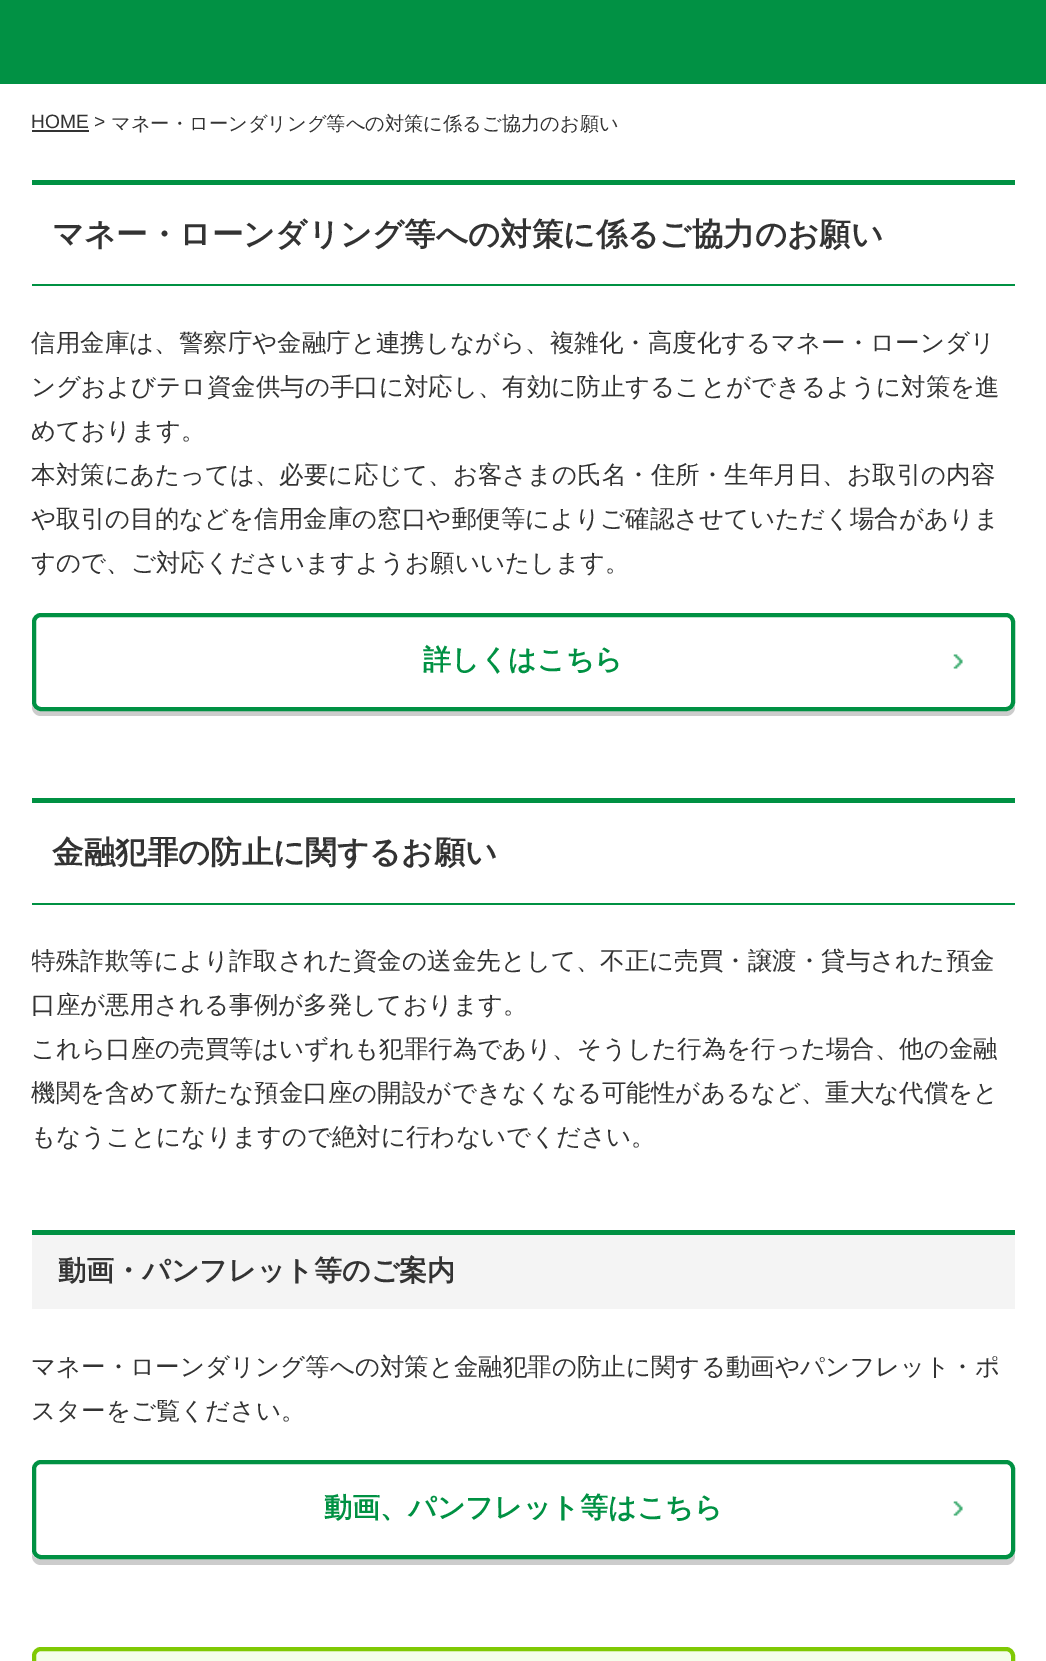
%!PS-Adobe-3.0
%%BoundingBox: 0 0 1046 1661
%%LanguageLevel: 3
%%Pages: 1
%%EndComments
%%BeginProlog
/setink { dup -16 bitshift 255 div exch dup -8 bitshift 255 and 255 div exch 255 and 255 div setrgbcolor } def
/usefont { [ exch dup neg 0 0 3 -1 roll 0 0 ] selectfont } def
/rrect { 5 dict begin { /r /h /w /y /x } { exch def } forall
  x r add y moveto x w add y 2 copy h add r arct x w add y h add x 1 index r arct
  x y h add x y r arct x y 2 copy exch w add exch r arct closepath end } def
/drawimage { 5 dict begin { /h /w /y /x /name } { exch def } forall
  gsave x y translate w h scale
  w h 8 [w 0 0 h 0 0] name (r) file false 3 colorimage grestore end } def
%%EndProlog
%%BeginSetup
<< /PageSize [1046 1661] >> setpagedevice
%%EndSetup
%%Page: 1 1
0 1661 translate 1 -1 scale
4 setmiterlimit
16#FFFFFF setink
0 0 1046 1661 rectfill
16#019144 setink
0 0 1046 84 rectfill
/LiberationSans-Regular 19.25 usefont
16#333333 setink
31 128 moveto (HOME >) show
32 130 57 2 rectfill
/WenQuanYiZenHei-Medium 19.25 usefont
111 130 moveto (マネー・ローンダリング等への対策に係るご協力のお願い) show
16#009143 setink
32 180 983 5 rectfill
32 284 983 2 rectfill
/WenQuanYiZenHei-Bold 31.5 usefont
16#333333 setink
52 245 moveto (マネー・ローンダリング等への対策に係るご協力のお願い) show
/WenQuanYiZenHei-Medium 24.5 usefont
[
    [(信用金庫は、警察庁や金融庁と連携しながら、複雑化・高度化するマネー・ローンダリ) 31 351]
    [(ングおよびテロ資金供与の手口に対応し、有効に防止することができるように対策を進) 31 395]
    [(めております。) 31 439]
    [(本対策にあたっては、必要に応じて、お客さまの氏名・住所・生年月日、お取引の内容) 31 483]
    [(や取引の目的などを信用金庫の窓口や郵便等によりご確認させていただく場合がありま) 31 527]
    [(すので、ご対応くださいますようお願いいたします。) 31 571]
] { aload pop moveto show } forall
16#CCCCCC setink
32 705 moveto 32 707 lineto 32 712 36 716 41 716 curveto 1006 716 lineto 1011 716 1015 712 1015 707 curveto 1015 702 lineto 1015 707 1011 710 1006 710 curveto 40 710 lineto 36 710 33 708 32 705 curveto closepath fill
16#FFFFFF setink
32 613 983 98 9 rrect fill
(img1.raw) 953 654 10 15 drawimage
16#009143 setink
4 setlinewidth
34 615 979 94 7 rrect stroke
/WenQuanYiZenHei-Bold 28 usefont
423 669 moveto (詳しくはこちら) show
32 798 983 5 rectfill
32 903 983 2 rectfill
/WenQuanYiZenHei-Bold 31.5 usefont
16#333333 setink
52 863 moveto (金融犯罪の防止に関するお願い) show
gsave
32 798 983 362 rectclip
/WenQuanYiZenHei-Medium 24.5 usefont
31 969 moveto (特殊詐欺等により詐取された資金の送金先として、不正に売買・譲渡・貸与された預金) show
grestore
/WenQuanYiZenHei-Medium 24.5 usefont
[
    [(口座が悪用される事例が多発しております。) 31 1013]
    [(これら口座の売買等はいずれも犯罪行為であり、そうした行為を行った場合、他の金融) 31 1057]
    [(機関を含めて新たな預金口座の開設ができなくなる可能性があるなど、重大な代償をと) 31 1101]
    [(もなうことになりますので絶対に行わないでください。) 31 1145]
] { aload pop moveto show } forall
16#F4F4F4 setink
32 1235 983 74 rectfill
16#009143 setink
32 1230 983 5 rectfill
/WenQuanYiZenHei-Bold 28 usefont
16#333333 setink
58 1280 moveto (動画・パンフレット等のご案内) show
/WenQuanYiZenHei-Medium 24.5 usefont
31 1375 moveto (マネー・ローンダリング等への対策と金融犯罪の防止に関する動画やパンフレット・ポ) show
31 1419 moveto (スターをご覧ください。) show
16#CCCCCC setink
32 1553 moveto 32 1556 lineto 32 1561 36 1565 41 1565 curveto 1006 1565 lineto 1011 1565 1015 1561 1015 1556 curveto 1015 1550 lineto 1015 1555 1011 1559 1006 1559 curveto 40 1559 lineto 36 1559 33 1557 32 1553 curveto closepath fill
16#FFFFFF setink
32 1460 983 99 9 rrect fill
(img1.raw) 953 1501 10 15 drawimage
16#009143 setink
34 1462 979 95 7 rrect stroke
/WenQuanYiZenHei-Bold 28 usefont
324 1517 moveto (動画、パンフレット等はこちら) show
16#F4FEEB setink
34 1649 979 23 7 rrect gsave fill grestore
16#7FC904 setink
stroke
showpage
%%EOF
